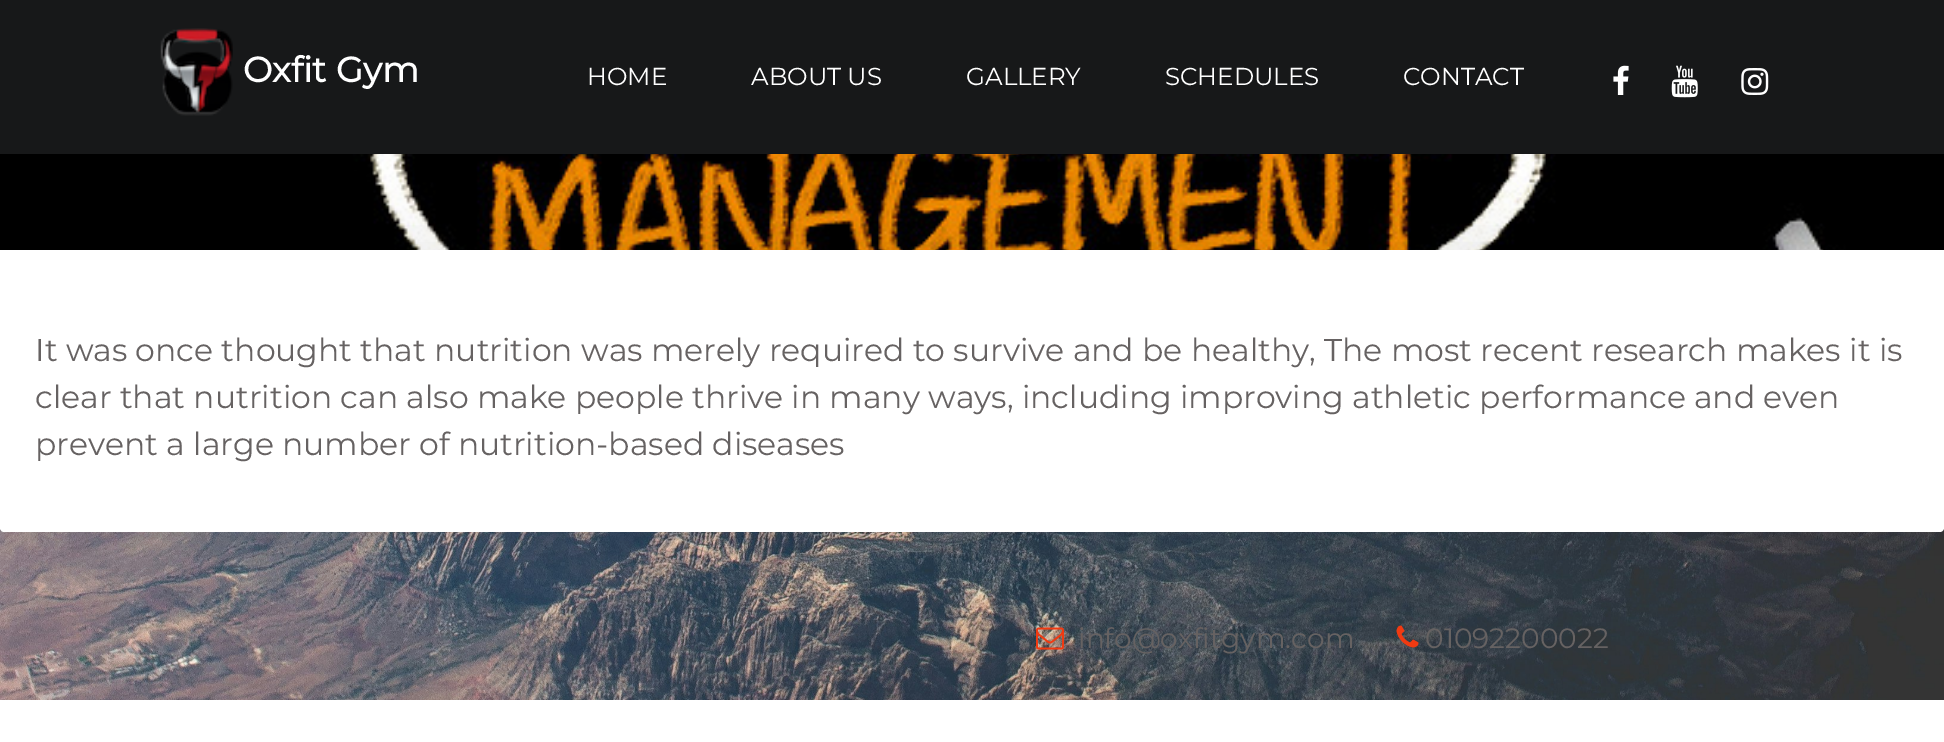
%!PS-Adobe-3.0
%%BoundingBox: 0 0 1944 742
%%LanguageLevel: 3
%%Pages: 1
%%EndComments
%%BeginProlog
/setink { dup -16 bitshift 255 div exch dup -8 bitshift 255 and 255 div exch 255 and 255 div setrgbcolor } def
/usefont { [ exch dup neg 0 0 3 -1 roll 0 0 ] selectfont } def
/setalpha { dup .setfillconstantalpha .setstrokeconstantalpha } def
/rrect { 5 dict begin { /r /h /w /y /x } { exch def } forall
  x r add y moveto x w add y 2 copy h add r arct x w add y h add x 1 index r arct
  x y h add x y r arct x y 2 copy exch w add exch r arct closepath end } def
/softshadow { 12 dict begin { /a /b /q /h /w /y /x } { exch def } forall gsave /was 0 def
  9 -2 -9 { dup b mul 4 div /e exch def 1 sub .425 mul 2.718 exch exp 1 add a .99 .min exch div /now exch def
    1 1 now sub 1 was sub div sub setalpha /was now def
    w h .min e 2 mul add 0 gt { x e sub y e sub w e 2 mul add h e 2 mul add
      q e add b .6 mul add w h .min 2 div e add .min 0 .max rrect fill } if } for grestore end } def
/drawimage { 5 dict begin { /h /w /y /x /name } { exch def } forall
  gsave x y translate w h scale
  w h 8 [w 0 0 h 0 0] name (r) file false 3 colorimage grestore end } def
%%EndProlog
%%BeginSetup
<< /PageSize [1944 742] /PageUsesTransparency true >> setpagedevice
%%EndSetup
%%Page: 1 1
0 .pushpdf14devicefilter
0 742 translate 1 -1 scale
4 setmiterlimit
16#FFFFFF setink
0 0 1944 742 rectfill
(img5.raw) 0 528 1944 172 drawimage
(img6.raw) 0 154 1944 96 drawimage
16#141414 setink
11 250 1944 282 4 33 0.1 softshadow
16#171819 setink
0 0 1944 154 rectfill
(img1.raw) 160 28 73 88 drawimage
/Montserrat-Bold 35 usefont
16#FFFFFF setink
243 82 moveto (Oxfit Gym) show
/Montserrat-Thin 24.5 usefont
[
    [(HOME) 587 85]
    [(ABOUT US) 751 85]
    [(GALLERY) 966 85]
    [(SCHEDULES) 1165 85]
    [(CONTACT) 1403 85]
] { aload pop moveto show } forall
(img2.raw) 1613 65 16 30 drawimage
(img3.raw) 1671 65 27 33 drawimage
(img4.raw) 1741 68 28 27 drawimage
0 250 moveto 1944 250 lineto 1944 528 lineto 1944 530 1942 532 1940 532 curveto 4 532 lineto 2 532 0 530 0 528 curveto closepath fill
/Montserrat-Thin 31.5 usefont
16#666262 setink
[
    [(It was once thought that nutrition was merely required to survive and be healthy, The most recent research makes it is) 35 361]
    [(clear that nutrition can also make people thrive in many ways, including improving athletic performance and even) 35 408]
    [(prevent a large number of nutrition-based diseases) 35 455]
] { aload pop moveto show } forall
(img7.raw) 1036 627 28 23 drawimage
/Montserrat-Thin 28 usefont
1078 648 moveto (info@oxfitgym.com) show
(img8.raw) 1396 625 23 23 drawimage
1425 648 moveto (01092200022) show
.poppdf14devicefilter showpage
%%EOF
